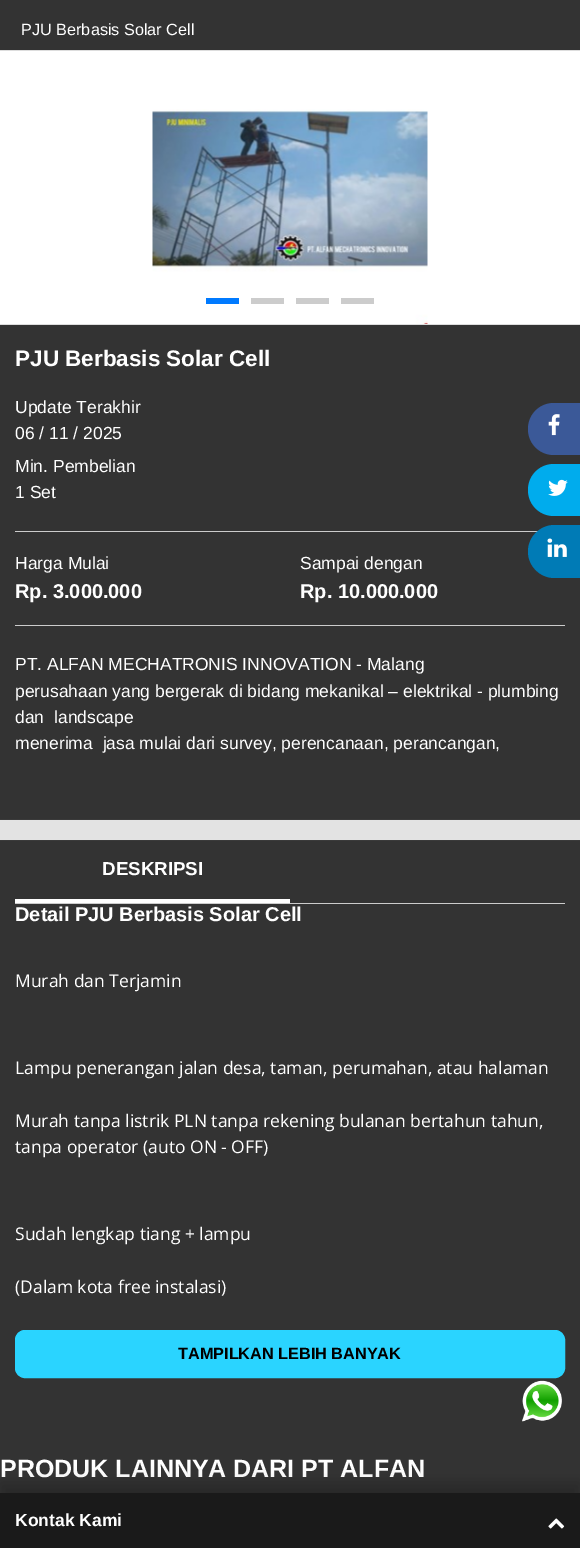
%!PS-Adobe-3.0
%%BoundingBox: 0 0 580 1548
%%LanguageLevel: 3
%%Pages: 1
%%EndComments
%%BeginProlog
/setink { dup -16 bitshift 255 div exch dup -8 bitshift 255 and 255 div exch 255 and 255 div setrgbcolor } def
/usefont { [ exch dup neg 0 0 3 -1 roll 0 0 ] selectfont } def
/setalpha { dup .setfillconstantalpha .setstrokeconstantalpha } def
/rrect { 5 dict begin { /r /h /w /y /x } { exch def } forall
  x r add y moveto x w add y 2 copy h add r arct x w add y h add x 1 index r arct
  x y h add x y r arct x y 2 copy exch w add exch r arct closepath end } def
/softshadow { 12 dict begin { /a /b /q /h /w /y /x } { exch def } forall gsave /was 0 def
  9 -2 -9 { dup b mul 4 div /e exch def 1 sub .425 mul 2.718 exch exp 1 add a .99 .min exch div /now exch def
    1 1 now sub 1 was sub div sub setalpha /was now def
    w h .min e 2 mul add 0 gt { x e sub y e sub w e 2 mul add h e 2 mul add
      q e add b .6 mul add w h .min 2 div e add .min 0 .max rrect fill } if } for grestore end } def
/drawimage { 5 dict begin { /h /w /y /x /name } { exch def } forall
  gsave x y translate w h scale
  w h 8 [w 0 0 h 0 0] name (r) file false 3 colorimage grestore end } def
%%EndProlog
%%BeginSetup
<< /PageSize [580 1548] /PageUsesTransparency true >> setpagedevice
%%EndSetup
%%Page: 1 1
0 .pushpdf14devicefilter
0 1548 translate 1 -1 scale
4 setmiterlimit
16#333333 setink
0 0 580 1548 rectfill
/LiberationSans-Regular 16.25 usefont
16#FFFFFF setink
21 35 moveto (PJU Berbasis Solar Cell) show
[
    [0 51 580 273 16#FFFFFF]
    [0 50 580 1 16#DDDDDD]
    [0 324 580 1 16#DDDDDD]
] { aload pop setink rectfill } forall
(img1.raw) 152 109 276 215 drawimage
[
    [206 298 33 6 16#007AFF]
    [251 298 33 6 16#CCCCCC]
    [296 298 33 6 16#CCCCCC]
    [341 298 33 6 16#CCCCCC]
    [15 531 523 1 16#CCCCCC]
] { aload pop setink rectfill } forall
/LiberationSans-Bold 22.5 usefont
16#FFFFFF setink
15 366 moveto (PJU Berbasis Solar Cell) show
/LiberationSans-Regular 17.5 usefont
[
    [(Update Terakhir) 15 413]
    [(06 / 11 / 2025) 15 439]
    [(Min. Pembelian) 15 472]
    [(1 Set) 15 498]
    [(Harga Mulai) 15 569]
] { aload pop moveto show } forall
/LiberationSans-Bold 20 usefont
15 598 moveto (Rp. 3.000.000) show
/LiberationSans-Regular 17.5 usefont
300 569 moveto (Sampai dengan) show
/LiberationSans-Bold 20 usefont
300 598 moveto (Rp. 10.000.000) show
16#CCCCCC setink
15 625 550 1 rectfill
/LiberationSans-Regular 17.5 usefont
16#FFFFFF setink
[
    [(PT. ALFAN MECHATRONIS INNOVATION - Malang) 15 670]
    [(perusahaan yang bergerak di bidang mekanikal – elektrikal - plumbing) 15 697]
    [(dan  landscape) 15 723]
    [(menerima  jasa mulai dari survey, perencanaan, perancangan,) 15 749]
] { aload pop moveto show } forall
16#4D4D4D setink
0 820 580 20 0 0.5 1 softshadow
[
    [0 820 580 20 16#E3E3E3]
    [15 903 550 1 16#CCCCCC]
    [15 899 275 4 16#FFFFFF]
] { aload pop setink rectfill } forall
/LiberationSans-Bold 18.75 usefont
102 875 moveto (DESKRIPSI) show
/LiberationSans-Bold 20 usefont
15 921 moveto (Detail PJU Berbasis Solar Cell) show
/OpenSans-Regular 17.5 usefont
[
    [(Murah dan Terjamin) 15 987]
    [(Lampu penerangan jalan desa, taman, perumahan, atau halaman) 15 1074]
    [(Murah tanpa listrik PLN tanpa rekening bulanan bertahun tahun,) 15 1127]
    [(tanpa operator \(auto ON - OFF\)) 15 1153]
    [(Sudah lengkap tiang + lampu) 15 1240]
    [(\(Dalam kota free instalasi\)) 15 1293]
] { aload pop moveto show } forall
16#2AD4FF setink
15.5 1330.5 549 47 9.5 rrect gsave fill grestore
stroke
/LiberationSans-Bold 16.25 usefont
16#000000 setink
178 1359 moveto (TAMPILKAN LEBIH BANYAK) show
/LiberationSans-Bold 25 usefont
16#FFFFFF setink
0 1477 moveto (PRODUK LAINNYA DARI PT ALFAN) show
16#3B5998 setink
554 403 moveto 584 403 lineto 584 455 lineto 554 455 lineto 539.5 455 528 443.5 528 429 curveto 528 414.5 539.5 403 554 403 curveto closepath fill
(img2.raw) 548 414 12 22 drawimage
16#00ACED setink
554 464 moveto 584 464 lineto 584 516 lineto 554 516 lineto 539.5 516 528 504.5 528 490 curveto 528 475.5 539.5 464 554 464 curveto closepath fill
(img3.raw) 548 479 20 17 drawimage
16#007BB6 setink
554.5 525 moveto 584 525 lineto 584 578 lineto 554.5 578 lineto 540 578 528 566 528 551.5 curveto 528 537 540 525 554.5 525 curveto closepath fill
(img4.raw) 547 538 20 19 drawimage
(img5.raw) 522 1380 40 42 drawimage
16#000000 setink
0 1483 580 56 0 7.5 0.2 softshadow
16#1A1A1A setink
0 1493 580 55 rectfill
/LiberationSans-Bold 17.5 usefont
16#FFFFFF setink
15 1526 moveto (Kontak Kami) show
(img6.raw) 548 1518 17 11 drawimage
.poppdf14devicefilter showpage
%%EOF
